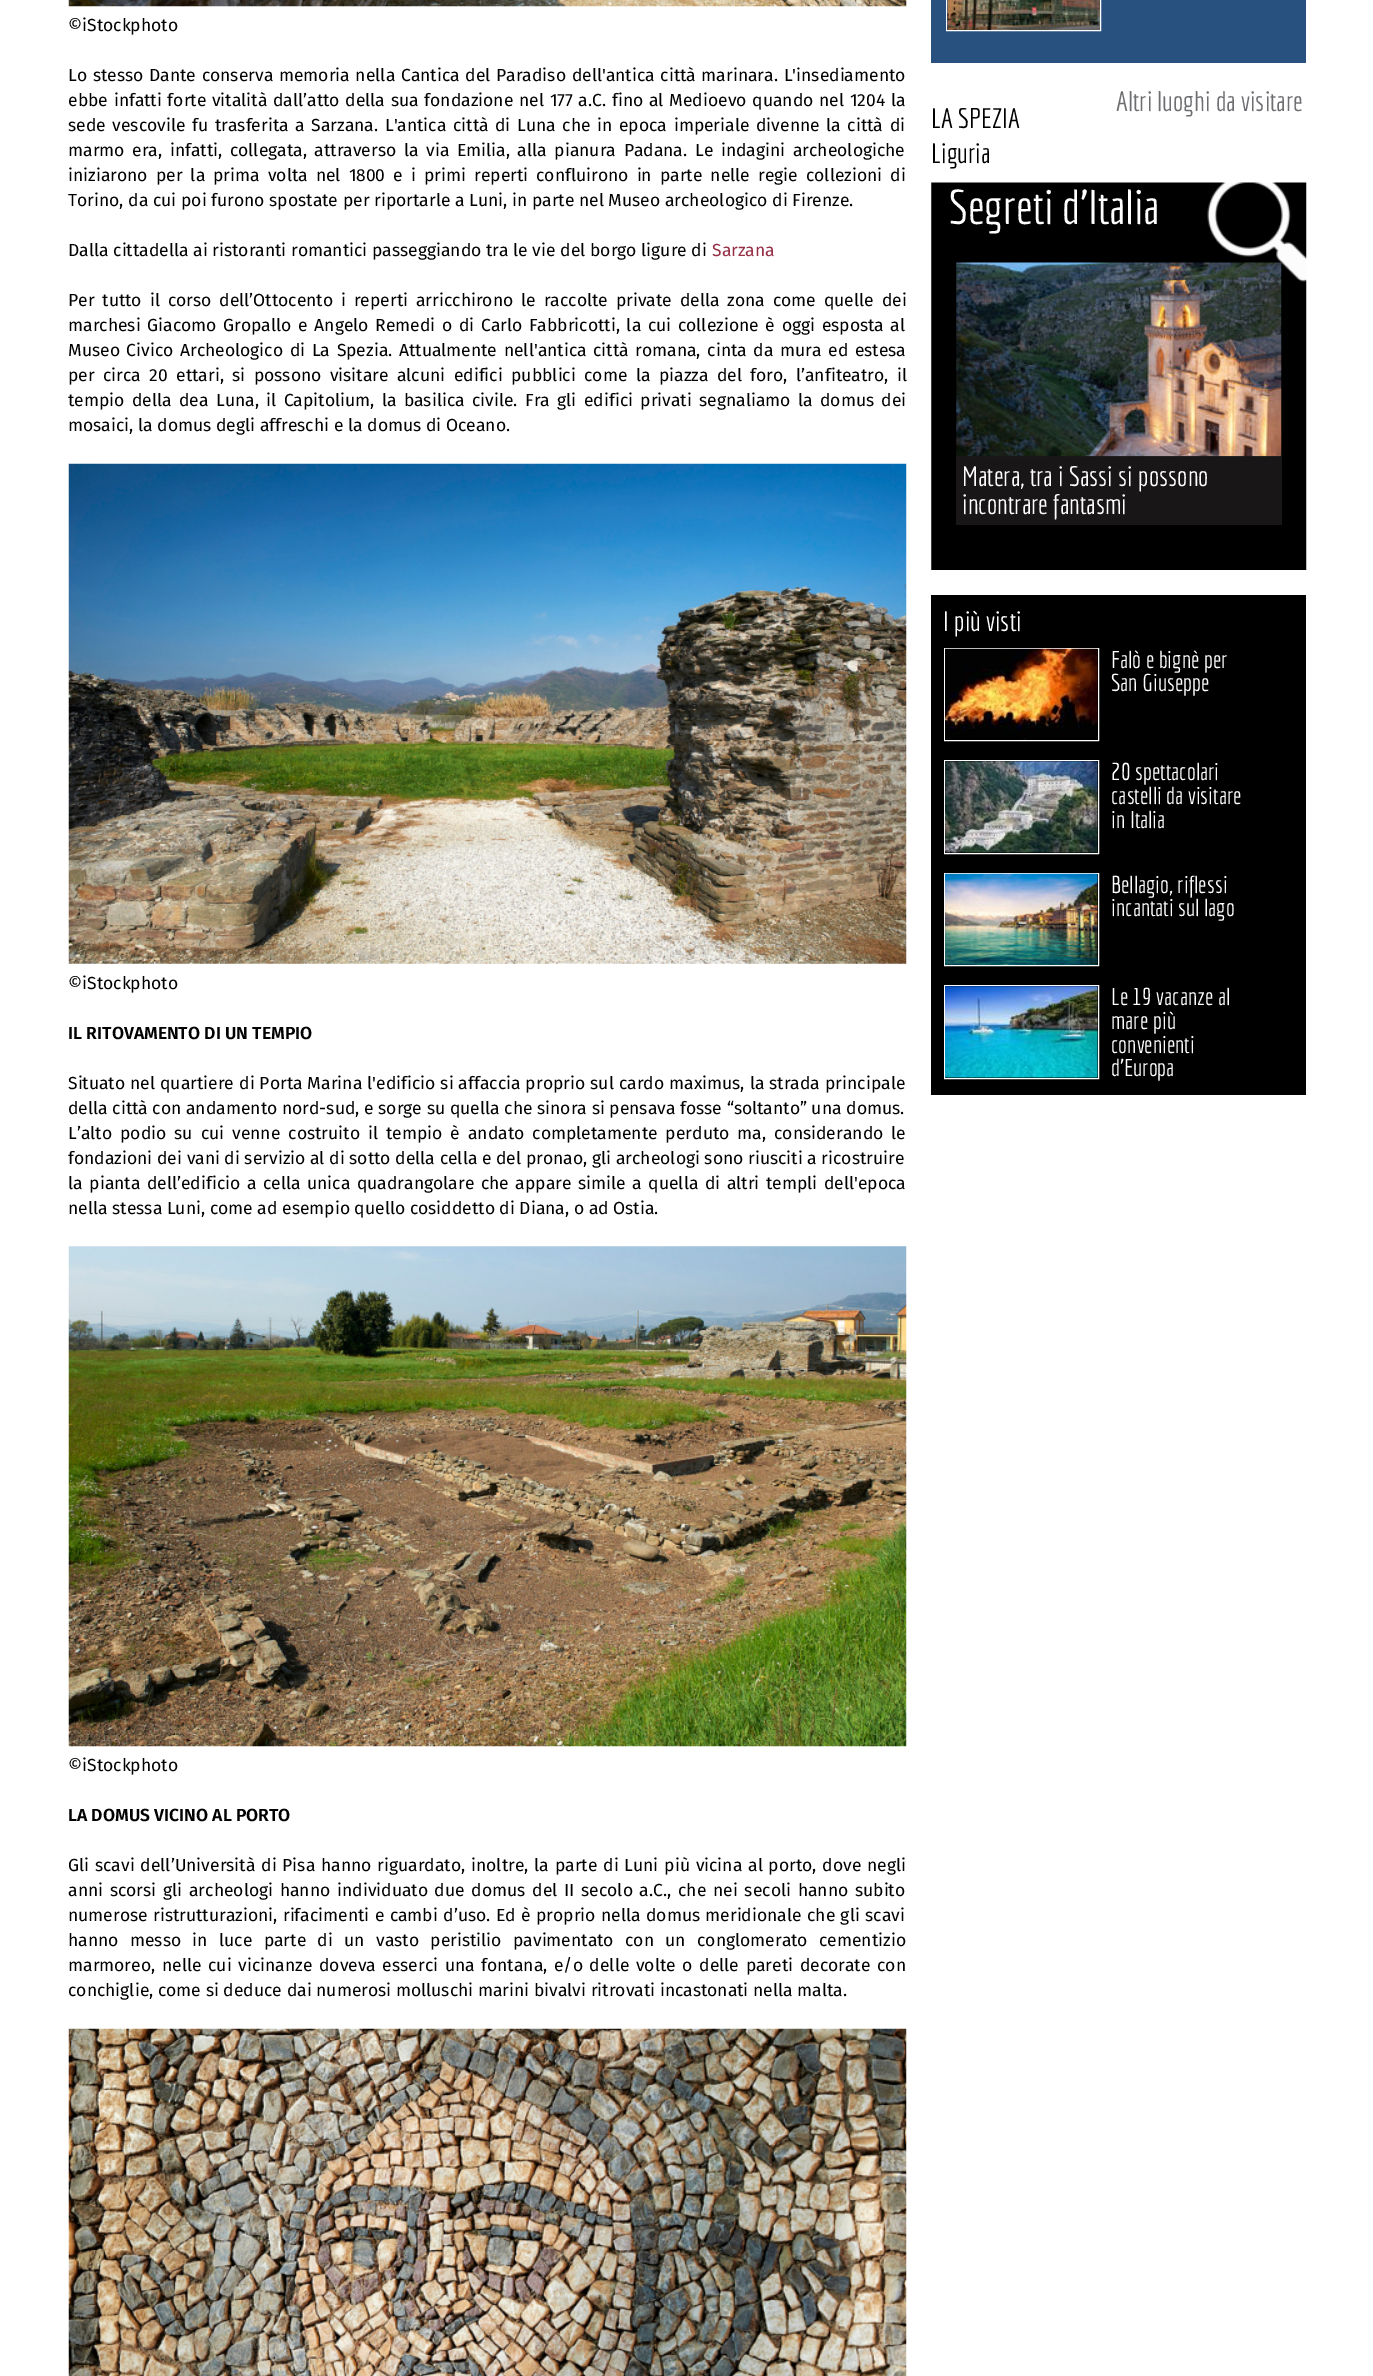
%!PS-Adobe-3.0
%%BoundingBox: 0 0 1373 2376
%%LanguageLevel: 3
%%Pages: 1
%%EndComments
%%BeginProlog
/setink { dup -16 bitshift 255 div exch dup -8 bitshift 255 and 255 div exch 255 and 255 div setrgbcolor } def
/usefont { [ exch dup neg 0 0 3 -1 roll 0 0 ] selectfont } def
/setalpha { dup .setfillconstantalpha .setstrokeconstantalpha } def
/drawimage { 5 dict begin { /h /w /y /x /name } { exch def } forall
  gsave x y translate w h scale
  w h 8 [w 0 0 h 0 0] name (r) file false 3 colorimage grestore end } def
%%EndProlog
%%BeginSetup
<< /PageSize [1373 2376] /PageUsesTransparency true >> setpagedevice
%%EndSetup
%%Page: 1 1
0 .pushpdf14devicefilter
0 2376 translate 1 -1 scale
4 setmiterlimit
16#FFFFFF setink
0 0 1373 2376 rectfill
(img1.raw) 68 0 839 7 drawimage
/FiraSans-Regular 17.5 usefont
16#000000 setink
68 31 moveto (©iStockphoto) show
68 81 moveto 1.1 0 32 (Lo stesso Dante conserva memoria nella Cantica del Paradiso dell'antica città marinara. L'insediamento) widthshow
68 106 moveto 1.1 0 32 (ebbe infatti forte vitalità dall’atto della sua fondazione nel 177 a.C. fino al Medioevo quando nel 1204 la) widthshow
68 131 moveto 2 0 32 (sede vescovile fu trasferita a Sarzana. L'antica città di Luna che in epoca imperiale divenne la città di) widthshow
68 156 moveto 3 0 32 (marmo era, infatti, collegata, attraverso la via Emilia, alla pianura Padana. Le indagini archeologiche) widthshow
68 181 moveto 3.4 0 32 (iniziarono per la prima volta nel 1800 e i primi reperti confluirono in parte nelle regie collezioni di) widthshow
68 206 moveto (Torino, da cui poi furono spostate per riportarle a Luni, in parte nel Museo archeologico di Firenze.) show
68 256 moveto (Dalla cittadella ai ristoranti romantici passeggiando tra le vie del borgo ligure di) show
16#962E45 setink
712 256 moveto (Sarzana) show
16#000000 setink
68 306 moveto 3.25 0 32 (Per tutto il corso dell’Ottocento i reperti arricchirono le raccolte private della zona come quelle dei) widthshow
68 331 moveto 2 0 32 (marchesi Giacomo Gropallo e Angelo Remedi o di Carlo Fabbricotti, la cui collezione è oggi esposta al) widthshow
68 356 moveto 2 0 32 (Museo Civico Archeologico di La Spezia. Attualmente nell'antica città romana, cinta da mura ed estesa) widthshow
68 381 moveto 3.75 0 32 (per circa 20 ettari, si possono visitare alcuni edifici pubblici come la piazza del foro, l’anfiteatro, il) widthshow
68 406 moveto 2.75 0 32 (tempio della dea Luna, il Capitolium, la basilica civile. Fra gli edifici privati segnaliamo la domus dei) widthshow
68 431 moveto (mosaici, la domus degli affreschi e la domus di Oceano.) show
(img2.raw) 68 463 839 501 drawimage
68 989 moveto (©iStockphoto) show
/FiraSans-SemiBold 17.5 usefont
68 1039 moveto (IL RITOVAMENTO DI UN TEMPIO) show
/FiraSans-Regular 17.5 usefont
68 1089 moveto 0.4 0 32 (Situato nel quartiere di Porta Marina l'edificio si affaccia proprio sul cardo maximus, la strada principale) widthshow
68 1114 moveto (della città con andamento nord-sud, e sorge su quella che sinora si pensava fosse “soltanto” una domus.) show
68 1139 moveto 3.4 0 32 (L’alto podio su cui venne costruito il tempio è andato completamente perduto ma, considerando le) widthshow
68 1164 moveto (fondazioni dei vani di servizio al di sotto della cella e del pronao, gli archeologi sono riusciti a ricostruire) show
68 1189 moveto 1.9 0 32 (la pianta dell’edificio a cella unica quadrangolare che appare simile a quella di altri templi dell'epoca) widthshow
68 1214 moveto (nella stessa Luni, come ad esempio quello cosiddetto di Diana, o ad Ostia.) show
(img3.raw) 68 1246 839 501 drawimage
68 1771 moveto (©iStockphoto) show
/FiraSans-SemiBold 17.5 usefont
68 1821 moveto (LA DOMUS VICINO AL PORTO) show
/FiraSans-Regular 17.5 usefont
68 1871 moveto 1.2 0 32 (Gli scavi dell’Università di Pisa hanno riguardato, inoltre, la parte di Luni più vicina al porto, dove negli) widthshow
68 1896 moveto 2.1 0 32 (anni scorsi gli archeologi hanno individuato due domus del II secolo a.C., che nei secoli hanno subito) widthshow
68 1921 moveto 0.75 0 32 (numerose ristrutturazioni, rifacimenti e cambi d’uso. Ed è proprio nella domus meridionale che gli scavi) widthshow
68 1946 moveto 6.75 0 32 (hanno messo in luce parte di un vasto peristilio pavimentato con un conglomerato cementizio) widthshow
68 1971 moveto 2 0 32 (marmoreo, nelle cui vicinanze doveva esserci una fontana, e/o delle volte o delle pareti decorate con) widthshow
68 1996 moveto (conchiglie, come si deduce dai numerosi molluschi marini bivalvi ritrovati incastonati nella malta.) show
(img4.raw) 68 2028 839 348 drawimage
16#285180 setink
931 0 375 63 rectfill
16#FFFFFF setink
946.5 -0.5 154 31 rectstroke
(img5.raw) 947 0 153 30 drawimage
/Economica-Regular 27.5 usefont
16#6D6E71 setink
1116 111 moveto (Altri luoghi da visitare) show
16#000000 setink
931 128 moveto (LA SPEZIA) show
931 163 moveto (Liguria) show
(img6.raw) 931 182 376 388 drawimage
/Economica-Regular 47.5 usefont
16#FFFFFF setink
949 224 moveto (Segreti d'Italia) show
(img7.raw) 956 262 326 195 drawimage
0.7 setalpha
16#222020 setink
956 456 326 69 rectfill
/Economica-Regular 27.5 usefont
1 setalpha
16#FFFFFF setink
962 486 moveto (Matera, tra i Sassi si possono) show
962 514 moveto (incontrare fantasmi) show
16#000000 setink
931 595 375 500 rectfill
16#FFFFFF setink
943 631 moveto (I più visti) show
944.5 648.5 154 92 rectstroke
(img8.raw) 945 648 153 92 drawimage
/Economica-Regular 23.75 usefont
1111 668 moveto (Falò e bignè per) show
1111 691 moveto (San Giuseppe) show
944.5 760.5 154 93 rectstroke
(img9.raw) 945 761 153 92 drawimage
[
    [(20 spettacolari) 1111 780]
    [(castelli da visitare) 1111 804]
    [(in Italia) 1111 828]
] { aload pop moveto show } forall
944.5 873.5 154 92 rectstroke
(img10.raw) 945 873 153 92 drawimage
1111 893 moveto (Bellagio, riflessi) show
1111 916 moveto (incantati sul lago) show
944.5 985.5 154 93 rectstroke
(img11.raw) 945 986 153 92 drawimage
[
    [(Le 19 vacanze al) 1111 1005]
    [(mare più) 1111 1029]
    [(convenienti) 1111 1053]
    [(d’Europa) 1111 1076]
] { aload pop moveto show } forall
.poppdf14devicefilter showpage
%%EOF
